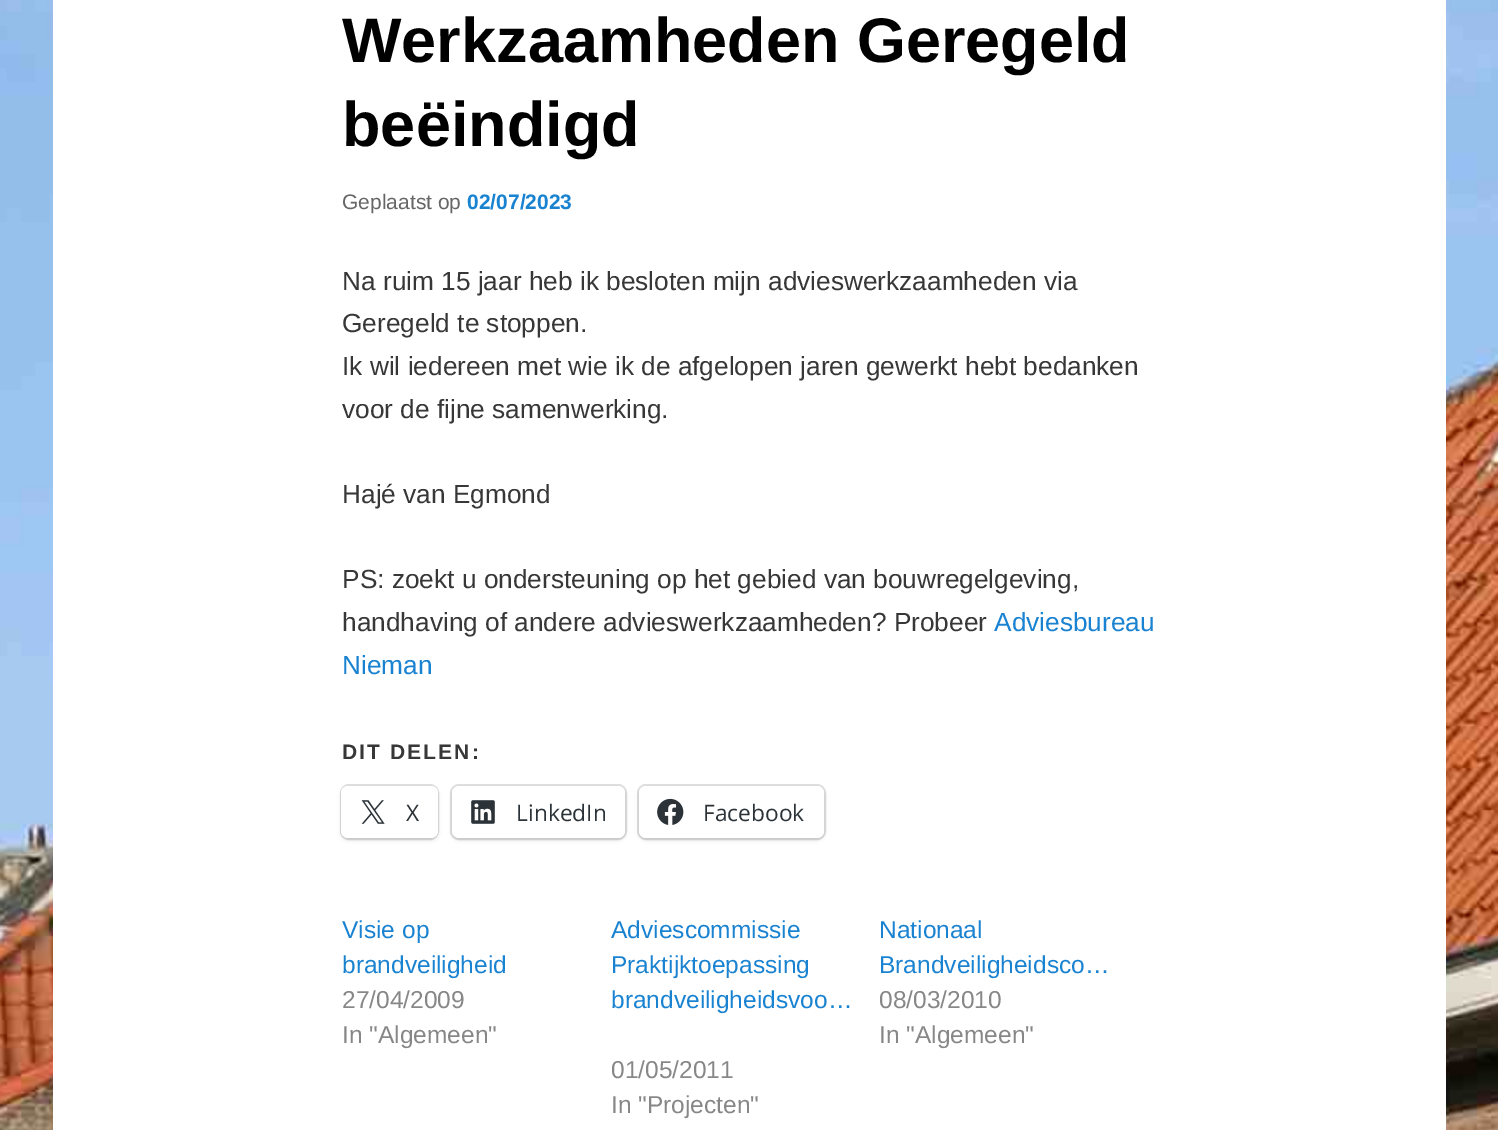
%!PS-Adobe-3.0
%%BoundingBox: 0 0 1498 1130
%%LanguageLevel: 3
%%Pages: 1
%%EndComments
%%BeginProlog
/setink { dup -16 bitshift 255 div exch dup -8 bitshift 255 and 255 div exch 255 and 255 div setrgbcolor } def
/usefont { [ exch dup neg 0 0 3 -1 roll 0 0 ] selectfont } def
/setalpha { dup .setfillconstantalpha .setstrokeconstantalpha } def
/rrect { 5 dict begin { /r /h /w /y /x } { exch def } forall
  x r add y moveto x w add y 2 copy h add r arct x w add y h add x 1 index r arct
  x y h add x y r arct x y 2 copy exch w add exch r arct closepath end } def
/softshadow { 12 dict begin { /a /b /q /h /w /y /x } { exch def } forall gsave /was 0 def
  9 -2 -9 { dup b mul 4 div /e exch def 1 sub .425 mul 2.718 exch exp 1 add a .99 .min exch div /now exch def
    1 1 now sub 1 was sub div sub setalpha /was now def
    w h .min e 2 mul add 0 gt { x e sub y e sub w e 2 mul add h e 2 mul add
      q e add b .6 mul add w h .min 2 div e add .min 0 .max rrect fill } if } for grestore end } def
/drawimage { 5 dict begin { /h /w /y /x /name } { exch def } forall
  gsave x y translate w h scale
  w h 8 [w 0 0 h 0 0] name (r) file false 3 colorimage grestore end } def
%%EndProlog
%%BeginSetup
<< /PageSize [1498 1130] /PageUsesTransparency true >> setpagedevice
%%EndSetup
%%Page: 1 1
0 .pushpdf14devicefilter
0 1130 translate 1 -1 scale
4 setmiterlimit
16#FFFFFF setink
0 0 1498 1130 rectfill
(img1.raw) 0 0 1498 1130 drawimage
53 0 1393 1130 rectfill
/LiberationSans-Bold 63 usefont
16#000000 setink
342 62 moveto (Werkzaamheden Geregeld) show
342 146 moveto (beëindigd) show
/LiberationSans-Regular 21 usefont
16#666666 setink
342 209 moveto (Geplaatst op) show
/LiberationSans-Bold 21 usefont
16#1982D1 setink
467 209 moveto (02/07/2023) show
/LiberationSans-Regular 26.25 usefont
16#373737 setink
[
    [(Na ruim 15 jaar heb ik besloten mijn advieswerkzaamheden via) 342 290]
    [(Geregeld te stoppen.) 342 332]
    [(Ik wil iedereen met wie ik de afgelopen jaren gewerkt hebt bedanken) 342 375]
    [(voor de fijne samenwerking.) 342 418]
    [(Hajé van Egmond) 342 503]
    [(PS: zoekt u ondersteuning op het gebied van bouwregelgeving,) 342 588]
    [(handhaving of andere advieswerkzaamheden? Probeer) 342 631]
] { aload pop moveto show } forall
16#1982D1 setink
994 631 moveto (Adviesbureau) show
342 674 moveto (Nieman) show
/LiberationSans-Bold 21 usefont
16#373737 setink
342 759 moveto 2.1 0 (DIT DELEN:) ashow
16#E0E0E0 setink
2 setlinewidth
341 785 97 54 8 rrect stroke
16#000000 setink
341 788 97 52 7 2 0.12 softshadow
16#FFFFFF setink
341 786 97 52 7 rrect fill
(img2.raw) 361 800 24 24 drawimage
/OpenSans-Regular 22.75 usefont
16#2C3338 setink
406 821 moveto (X) show
16#E0E0E0 setink
451 785 175 54 8 rrect stroke
16#000000 setink
452 788 173 52 7 2 0.12 softshadow
16#FFFFFF setink
452 786 173 52 7 rrect fill
(img3.raw) 471 800 24 24 drawimage
16#2C3338 setink
516 821 moveto (LinkedIn) show
16#E0E0E0 setink
638 785 187 54 8 rrect stroke
16#000000 setink
639 788 185 52 7 2 0.12 softshadow
16#FFFFFF setink
639 786 185 52 7 rrect fill
(img4.raw) 657 798 27 27 drawimage
16#2C3338 setink
703 821 moveto (Facebook) show
/LiberationSans-Regular 24.5 usefont
16#1982D1 setink
342 938 moveto (Visie op) show
342 973 moveto (brandveiligheid) show
16#878787 setink
342 1008 moveto (27/04/2009) show
342 1043 moveto (In "Algemeen") show
16#1982D1 setink
[
    [(Adviescommissie) 611 938]
    [(Praktijktoepassing) 611 973]
    [(brandveiligheidsvoo…) 611 1008]
] { aload pop moveto show } forall
16#878787 setink
611 1078 moveto (01/05/2011) show
611 1113 moveto (In "Projecten") show
16#1982D1 setink
879 938 moveto (Nationaal) show
879 973 moveto (Brandveiligheidsco…) show
16#878787 setink
879 1008 moveto (08/03/2010) show
879 1043 moveto (In "Algemeen") show
.poppdf14devicefilter showpage
%%EOF
